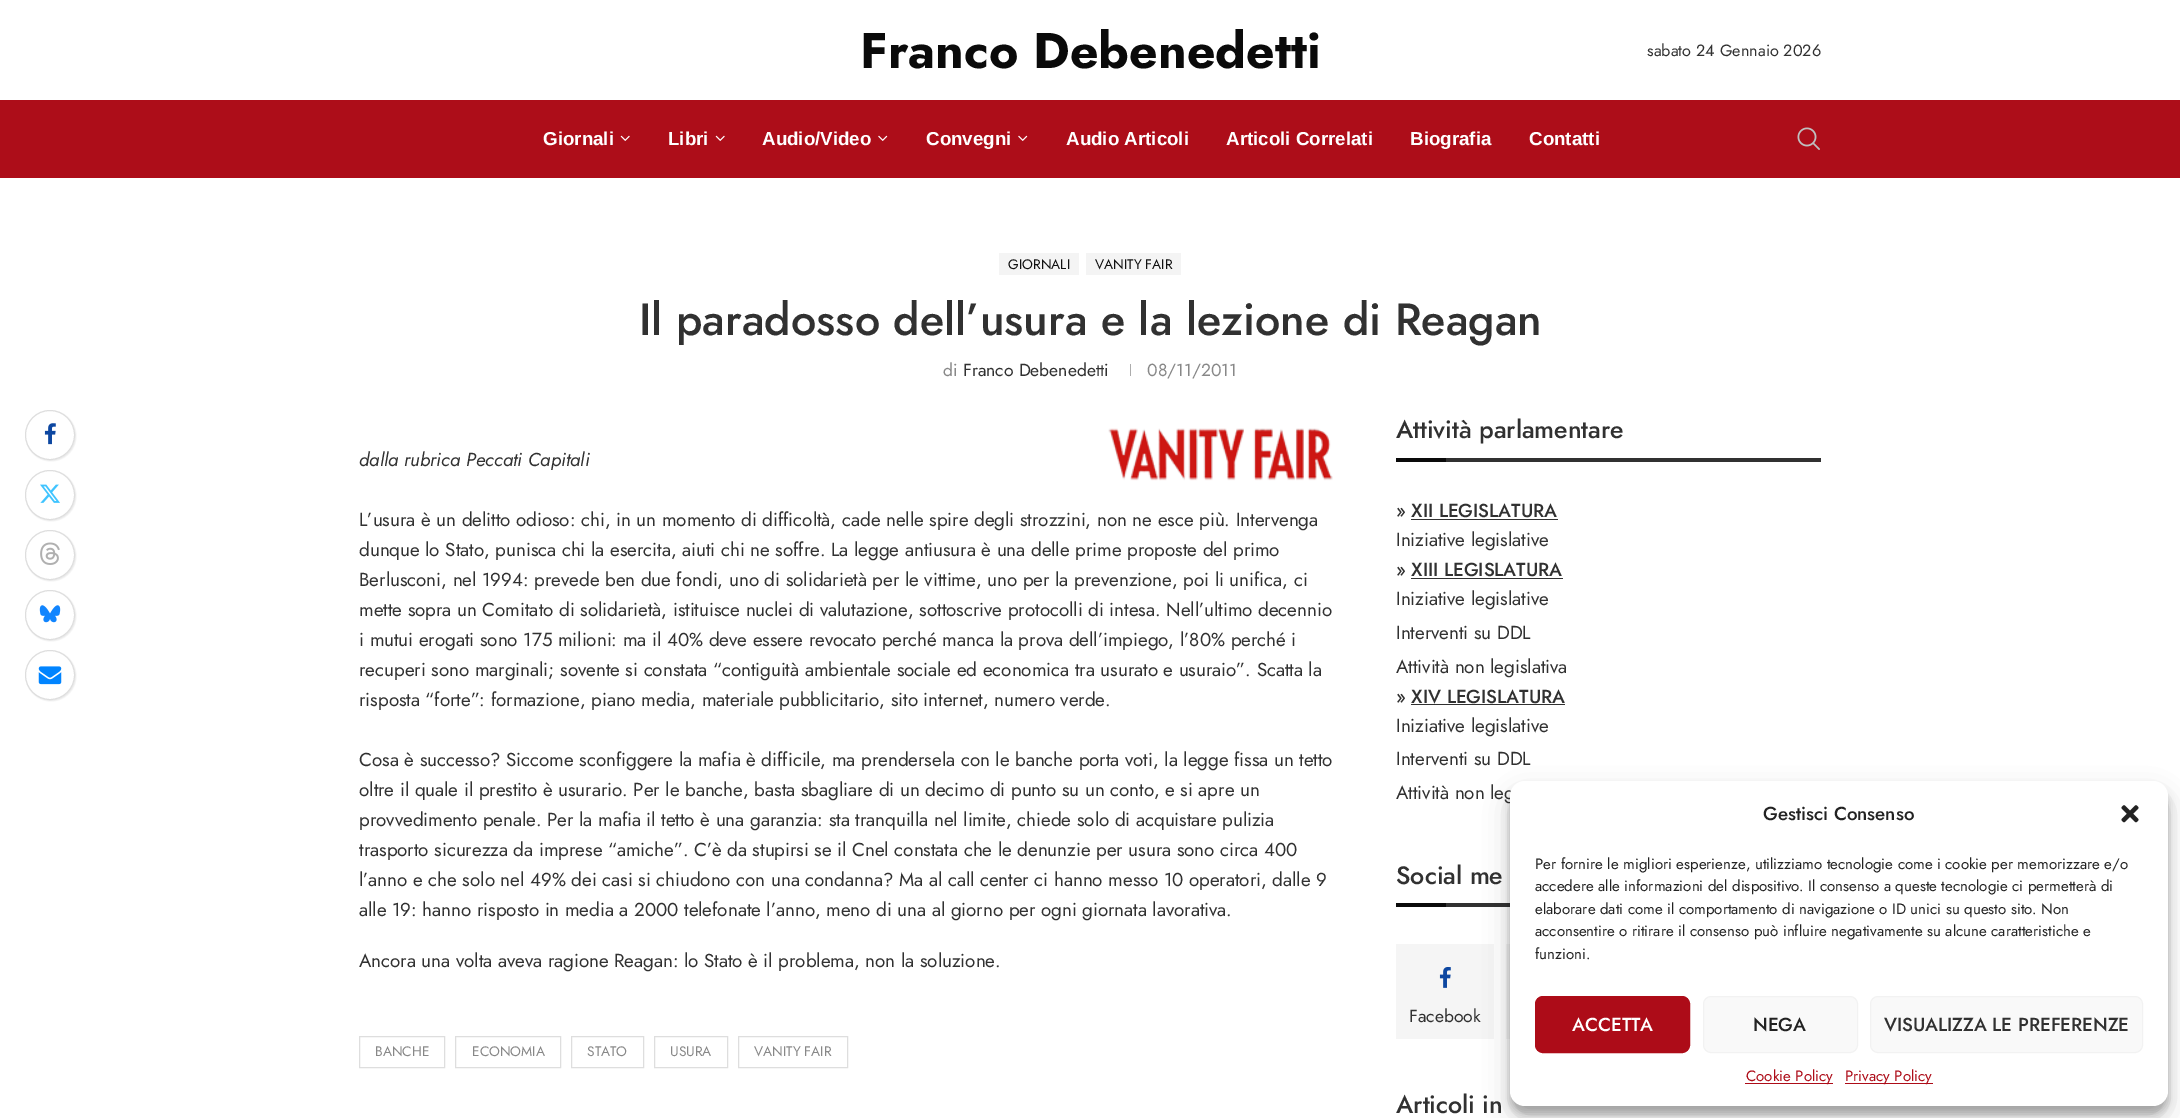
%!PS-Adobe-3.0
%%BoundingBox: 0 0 2180 1118
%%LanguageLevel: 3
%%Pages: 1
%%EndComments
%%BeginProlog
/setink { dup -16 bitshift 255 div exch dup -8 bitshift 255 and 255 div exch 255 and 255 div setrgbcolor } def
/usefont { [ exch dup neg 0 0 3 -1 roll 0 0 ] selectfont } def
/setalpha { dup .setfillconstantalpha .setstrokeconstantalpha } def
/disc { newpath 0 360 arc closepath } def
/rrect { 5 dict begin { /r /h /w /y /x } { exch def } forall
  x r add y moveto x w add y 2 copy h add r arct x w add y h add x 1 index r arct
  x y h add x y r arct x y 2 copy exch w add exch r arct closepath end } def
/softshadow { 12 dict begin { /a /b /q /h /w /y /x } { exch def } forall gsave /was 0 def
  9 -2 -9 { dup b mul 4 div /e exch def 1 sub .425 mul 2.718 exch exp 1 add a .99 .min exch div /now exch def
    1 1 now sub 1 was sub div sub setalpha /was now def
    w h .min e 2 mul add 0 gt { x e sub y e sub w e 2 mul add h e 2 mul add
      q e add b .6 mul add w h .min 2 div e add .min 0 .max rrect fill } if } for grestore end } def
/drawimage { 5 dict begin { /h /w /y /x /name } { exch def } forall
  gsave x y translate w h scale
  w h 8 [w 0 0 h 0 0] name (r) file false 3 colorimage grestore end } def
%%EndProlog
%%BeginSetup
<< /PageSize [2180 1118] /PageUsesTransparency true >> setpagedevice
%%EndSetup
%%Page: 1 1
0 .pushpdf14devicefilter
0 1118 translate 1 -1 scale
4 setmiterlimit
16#FFFFFF setink
0 0 2180 1118 rectfill
/Jost-Bold 50 usefont
16#0A0A0A setink
860 68 moveto (Franco Debenedetti) show
/Jost-Regular 16.25 usefont
16#313131 setink
1647 56 moveto (sabato 24 Gennaio 2026) show
16#AD0D19 setink
0 100 2180 78 rectfill
/LiberationSans-Bold 18.75 usefont
16#FFFFFF setink
543 145 moveto (Giornali) show
(img1.raw) 620 135 10 6 drawimage
668 145 moveto (Libri) show
(img1.raw) 715 135 10 6 drawimage
762 145 moveto (Audio/Video) show
(img2.raw) 878 135 10 6 drawimage
926 145 moveto (Convegni) show
(img2.raw) 1018 135 10 6 drawimage
[
    [(Audio Articoli) 1066 145]
    [(Articoli Correlati) 1226 145]
    [(Biografia) 1410 145]
    [(Contatti) 1529 145]
] { aload pop moveto show } forall
(img3.raw) 1797 127 23 23 drawimage
16#F4F4F4 setink
999 253 80 22 rectfill
/Jost-Regular 13.75 usefont
16#111111 setink
1008 269 moveto (GIORNALI) show
16#F4F4F4 setink
1086 253 95 22 rectfill
16#111111 setink
1095 269 moveto (VANITY FAIR) show
/Jost-Medium 45 usefont
16#313131 setink
639 335 moveto (Il paradosso dell’usura e la lezione di Reagan) show
/Jost-Regular 17.5 usefont
16#888888 setink
943 376 moveto (di) show
16#313131 setink
963 376 moveto (Franco Debenedetti) show
16#ACACAC setink
1130 364 1 12 rectfill
16#888888 setink
1147 376 moveto (08/11/2011) show
16#373737 setink
26 411 50 50 25 0.5 0.1 softshadow
16#FFFFFF setink
50 435 24.5 disc gsave fill grestore
16#DEDEDE setink
stroke
(img4.raw) 44 423 12 22 drawimage
16#373737 setink
26 471 50 50 25 0.5 0.1 softshadow
16#FFFFFF setink
50 495 24.5 disc gsave fill grestore
16#DEDEDE setink
stroke
(img5.raw) 40 484 20 19 drawimage
16#373737 setink
26 531 50 50 25 0.5 0.1 softshadow
16#FFFFFF setink
50 555 24.5 disc gsave fill grestore
16#DEDEDE setink
stroke
(img6.raw) 40 542 20 23 drawimage
16#373737 setink
26 591 50 50 25 0.5 0.1 softshadow
16#FFFFFF setink
50 615 24.5 disc gsave fill grestore
16#DEDEDE setink
stroke
(img7.raw) 39 605 22 18 drawimage
16#373737 setink
26 651 50 50 25 0.5 0.1 softshadow
16#FFFFFF setink
50 675 24.5 disc gsave fill grestore
16#DEDEDE setink
stroke
(img8.raw) 38 666 24 19 drawimage
/Jost-Italic 18.75 usefont
16#313131 setink
359 466 moveto (dalla rubrica Peccati Capitali) show
(img9.raw) 1108 428 225 53 drawimage
/Jost-Regular 18.75 usefont
[
    [(L’usura è un delitto odioso: chi, in un momento di difficoltà, cade nelle spire degli strozzini, non ne esce più. Intervenga) 359 526]
    [(dunque lo Stato, punisca chi la esercita, aiuti chi ne soffre. La legge antiusura è una delle prime proposte del primo) 359 556]
    [(Berlusconi, nel 1994: prevede ben due fondi, uno di solidarietà per le vittime, uno per la prevenzione, poi li unifica, ci) 359 586]
    [(mette sopra un Comitato di solidarietà, istituisce nuclei di valutazione, sottoscrive protocolli di intesa. Nell’ultimo decennio) 359 616]
    [(i mutui erogati sono 175 milioni: ma il 40% deve essere revocato perché manca la prova dell’impiego, l’80% perché i) 359 646]
    [(recuperi sono marginali; sovente si constata “contiguità ambientale sociale ed economica tra usurato e usuraio”. Scatta la) 359 676]
    [(risposta “forte”: formazione, piano media, materiale pubblicitario, sito internet, numero verde.) 359 706]
    [(Cosa è successo? Siccome sconfiggere la mafia è difficile, ma prendersela con le banche porta voti, la legge fissa un tetto) 359 766]
    [(oltre il quale il prestito è usurario. Per le banche, basta sbagliare di un decimo di punto su un conto, e si apre un) 359 796]
    [(provvedimento penale. Per la mafia il tetto è una garanzia: sta tranquilla nel limite, chiede solo di acquistare pulizia) 359 826]
    [(trasporto sicurezza da imprese “amiche”. C’è da stupirsi se il Cnel constata che le denunzie per usura sono circa 400) 359 856]
    [(l’anno e che solo nel 49% dei casi si chiudono con una condanna? Ma al call center ci hanno messo 10 operatori, dalle 9) 359 886]
    [(alle 19: hanno risposto in media a 2000 telefonate l’anno, meno di una al giorno per ogni giornata lavorativa.) 359 916]
    [(Ancora una volta aveva ragione Reagan: lo Stato è il problema, non la soluzione.) 359 967]
] { aload pop moveto show } forall
16#DEDEDE setink
359.5 1036.5 85 31 rectstroke
/Jost-Regular 13.75 usefont
16#888888 setink
375 1056 moveto (BANCHE) show
16#DEDEDE setink
455.5 1036.5 105 31 rectstroke
16#888888 setink
472 1056 moveto (ECONOMIA) show
16#DEDEDE setink
571.5 1036.5 72 31 rectstroke
16#888888 setink
587 1056 moveto (STATO) show
16#DEDEDE setink
654.5 1036.5 73 31 rectstroke
16#888888 setink
670 1056 moveto (USURA) show
16#DEDEDE setink
738.5 1036.5 109 31 rectstroke
16#888888 setink
754 1056 moveto (VANITY FAIR) show
16#313131 setink
1446 458 375 4 rectfill
/Jost-Medium 25 usefont
1396 438 moveto (Attività parlamentare) show
16#0A0A0A setink
1396 458 50 4 rectfill
/Jost-Medium 18.75 usefont
16#313131 setink
1396 517 moveto (» XII LEGISLATURA) show
1411 519 147 1 rectfill
/Jost-Regular 18.75 usefont
1396 546 moveto (Iniziative legislative) show
/Jost-Medium 18.75 usefont
1396 576 moveto (» XIII LEGISLATURA) show
1411 578 152 1 rectfill
/Jost-Regular 18.75 usefont
[
    [(Iniziative legislative) 1396 605]
    [(Interventi su DDL) 1396 639]
    [(Attività non legislativa) 1396 673]
] { aload pop moveto show } forall
/Jost-Medium 18.75 usefont
1396 703 moveto (» XIV LEGISLATURA) show
1411 704 154 1 rectfill
/Jost-Regular 18.75 usefont
[
    [(Iniziative legislative) 1396 732]
    [(Interventi su DDL) 1396 765]
    [(Attività non leg) 1396 799]
] { aload pop moveto show } forall
1446 903 64 4 rectfill
/Jost-Medium 25 usefont
1396 884 moveto (Social me) show
16#0A0A0A setink
1396 903 50 4 rectfill
16#F5F5F5 setink
1396 944 98 95 rectfill
(img10.raw) 1439 967 12 21 drawimage
/Jost-Regular 17.5 usefont
16#313131 setink
1409 1022 moveto (Facebook) show
16#F5F5F5 setink
1506 944 4 95 rectfill
/Jost-Medium 25 usefont
16#313131 setink
1396 1113 moveto (Articoli in) show
16#000000 setink
1510 789 658 325 15 4 0.23 softshadow
1510 794 658 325 15 12.5 0.19 softshadow
16#FFFFFF setink
1510 781 658 325 15 rrect fill
/Jost-Medium 18.75 usefont
16#222222 setink
1763 820 moveto (Gestisci Consenso) show
(img11.raw) 2121 805 18 18 drawimage
/Jost-Regular 15 usefont
[
    [(Per fornire le migliori esperienze, utilizziamo tecnologie come i cookie per memorizzare e/o) 1535 869]
    [(accedere alle informazioni del dispositivo. Il consenso a queste tecnologie ci permetterà di) 1535 891]
    [(elaborare dati come il comportamento di navigazione o ID unici su questo sito. Non) 1535 914]
    [(acconsentire o ritirare il consenso può influire negativamente su alcune caratteristiche e) 1535 936]
    [(funzioni.) 1535 959]
] { aload pop moveto show } forall
16#AD0C18 setink
1535.5 996.5 154 56 7.5 rrect gsave fill grestore
stroke
/Jost-Medium 18.75 usefont
16#FFFFFF setink
1572 1031 moveto (ACCETTA) show
16#F9F9F9 setink
1703.5 996.5 154 56 7.5 rrect gsave fill grestore
16#F2F2F2 setink
stroke
16#222222 setink
1753 1031 moveto (NEGA) show
16#F9F9F9 setink
1870.5 996.5 272 56 7.5 rrect gsave fill grestore
16#F2F2F2 setink
stroke
16#313131 setink
1884 1031 moveto (VISUALIZZA LE PREFERENZE) show
16#AD0C18 setink
1745 1083 88 1 rectfill
/Jost-Regular 15 usefont
1746 1081 moveto (Cookie Policy) show
1845 1083 88 1 rectfill
1845 1081 moveto (Privacy Policy) show
.poppdf14devicefilter showpage
%%EOF
